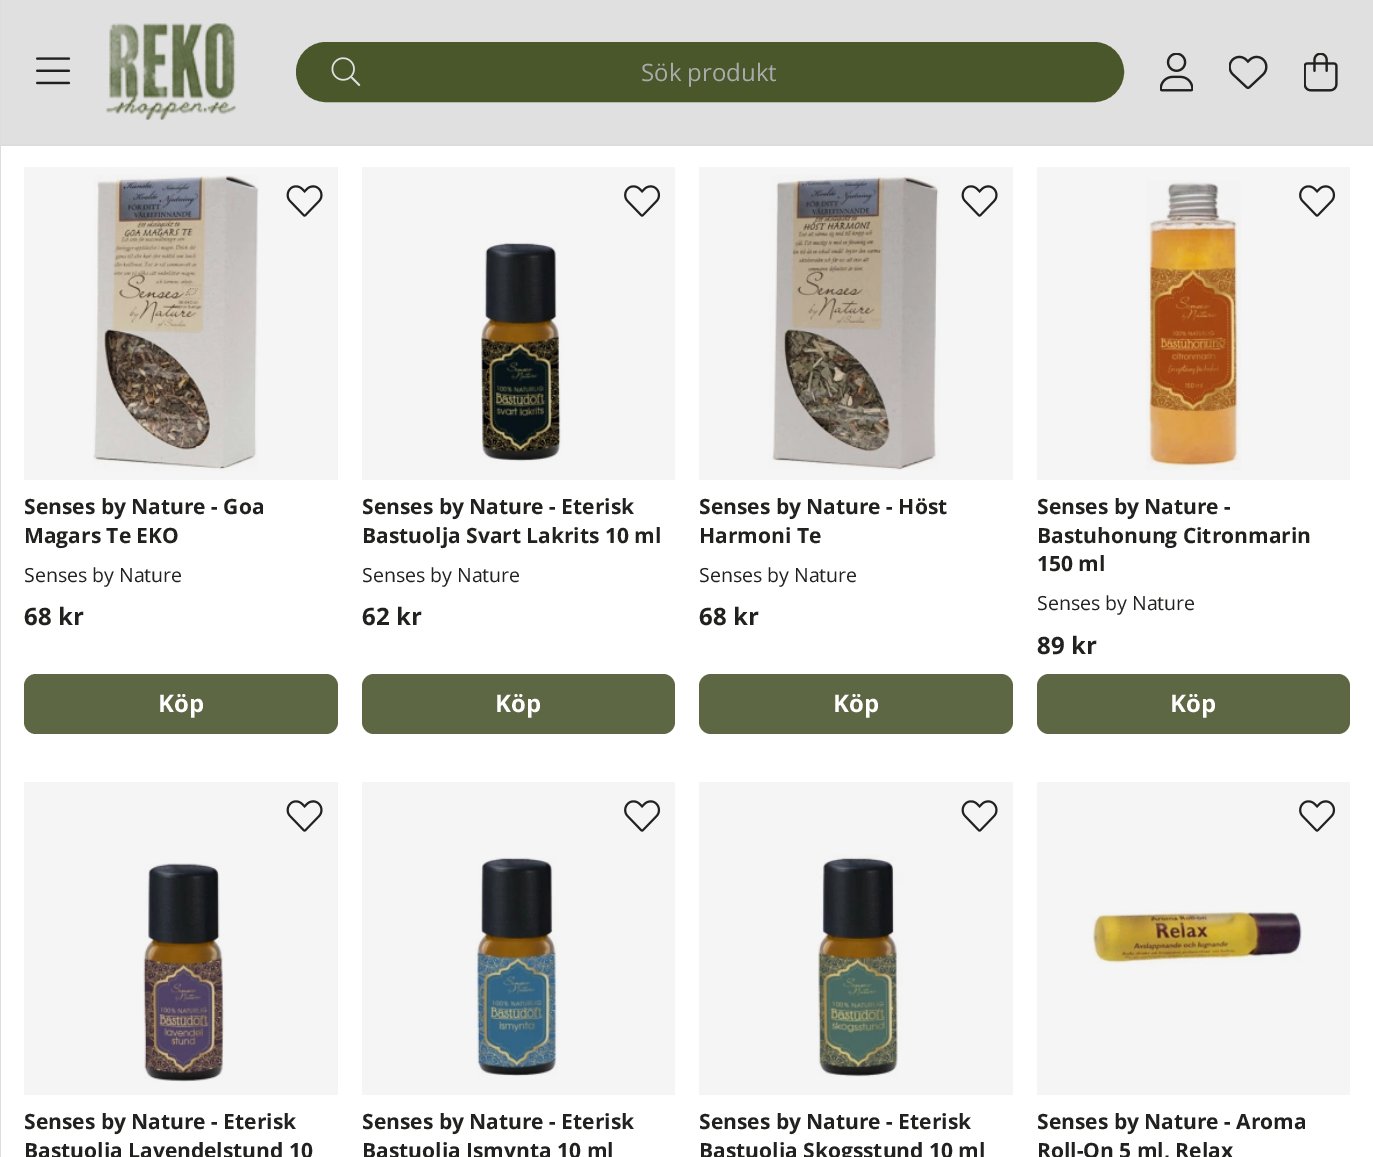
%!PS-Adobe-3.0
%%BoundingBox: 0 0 1373 1157
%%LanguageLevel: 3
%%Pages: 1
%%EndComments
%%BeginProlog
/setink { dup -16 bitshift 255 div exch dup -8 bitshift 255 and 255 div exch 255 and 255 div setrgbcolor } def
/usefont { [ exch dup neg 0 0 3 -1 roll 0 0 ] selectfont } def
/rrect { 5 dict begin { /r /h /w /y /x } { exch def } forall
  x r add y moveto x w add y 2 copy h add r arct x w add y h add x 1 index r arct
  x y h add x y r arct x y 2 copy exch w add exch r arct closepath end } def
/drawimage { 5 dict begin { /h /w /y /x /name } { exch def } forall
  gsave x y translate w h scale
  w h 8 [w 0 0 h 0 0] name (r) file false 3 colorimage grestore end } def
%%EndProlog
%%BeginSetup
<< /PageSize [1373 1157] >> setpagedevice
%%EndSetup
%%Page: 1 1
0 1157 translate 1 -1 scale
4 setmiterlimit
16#FFFFFF setink
0 0 1373 1157 rectfill
[
    [1037 782 313 313 16#F5F5F5]
    [699 782 314 313 16#F5F5F5]
    [362 782 313 313 16#F5F5F5]
    [24 782 314 313 16#F5F5F5]
    [1037 167 313 313 16#F5F5F5]
    [699 167 314 313 16#F5F5F5]
    [362 167 313 313 16#F5F5F5]
    [24 167 314 313 16#F5F5F5]
    [1 0 1372 144 16#E0E0E0]
    [0 144 1373 2 16#DDDDDD]
    [0 0 1 1157 16#DDDDDD]
] { aload pop setink rectfill } forall
(img1.raw) 36 57 35 28 drawimage
(img2.raw) 106 23 130 97 drawimage
16#49572B setink
297 43 826 58 29 rrect gsave fill grestore
2 setlinewidth
stroke
(img3.raw) 331 57 30 30 drawimage
/OpenSans-Regular 24 usefont
16#AAAAAA setink
641 81 moveto (Sök produkt) show
(img4.raw) 1160 53 33 39 drawimage
(img5.raw) 1229 55 39 34 drawimage
(img6.raw) 1304 53 34 39 drawimage
(img7.raw) 286 185 37 32 drawimage
(img8.raw) 93 175 166 296 drawimage
/OpenSans-Bold 21 usefont
16#212120 setink
24 514 moveto (Senses by Nature - Goa) show
24 543 moveto (Magars Te EKO) show
/OpenSans-Regular 19.5 usefont
24 582 moveto (Senses by Nature) show
/OpenSans-Bold 24 usefont
24 625 moveto (68 kr) show
16#5D6743 setink
24 674 314 60 12 rrect fill
16#FFFFFF setink
158 712 moveto (Köp) show
(img9.raw) 624 185 37 32 drawimage
(img10.raw) 481 240 83 222 drawimage
/OpenSans-Bold 21 usefont
16#212120 setink
362 514 moveto (Senses by Nature - Eterisk) show
362 543 moveto (Bastuolja Svart Lakrits 10 ml) show
/OpenSans-Regular 19.5 usefont
362 582 moveto (Senses by Nature) show
/OpenSans-Bold 24 usefont
362 625 moveto (62 kr) show
16#5D6743 setink
362 674 313 60 12 rrect fill
16#FFFFFF setink
495 712 moveto (Köp) show
(img7.raw) 961 185 37 32 drawimage
(img11.raw) 769 175 171 295 drawimage
/OpenSans-Bold 21 usefont
16#212120 setink
699 514 moveto (Senses by Nature - Höst) show
699 543 moveto (Harmoni Te) show
/OpenSans-Regular 19.5 usefont
699 582 moveto (Senses by Nature) show
/OpenSans-Bold 24 usefont
699 625 moveto (68 kr) show
16#5D6743 setink
699 674 314 60 12 rrect fill
16#FFFFFF setink
833 712 moveto (Köp) show
(img9.raw) 1299 185 37 32 drawimage
(img12.raw) 1146 180 95 290 drawimage
/OpenSans-Bold 21 usefont
16#212120 setink
[
    [(Senses by Nature -) 1037 514]
    [(Bastuhonung Citronmarin) 1037 543]
    [(150 ml) 1037 571]
] { aload pop moveto show } forall
/OpenSans-Regular 19.5 usefont
1037 610 moveto (Senses by Nature) show
/OpenSans-Bold 24 usefont
1037 654 moveto (89 kr) show
16#5D6743 setink
1037 674 313 60 12 rrect fill
16#FFFFFF setink
1170 712 moveto (Köp) show
(img7.raw) 286 800 37 32 drawimage
(img13.raw) 143 863 82 219 drawimage
/OpenSans-Bold 21 usefont
16#212120 setink
24 1129 moveto (Senses by Nature - Eterisk) show
24 1158 moveto (Bastuolja Lavendelstund 10) show
(img9.raw) 624 800 37 32 drawimage
(img14.raw) 475 857 83 219 drawimage
362 1129 moveto (Senses by Nature - Eterisk) show
362 1158 moveto (Bastuolja Ismynta 10 ml) show
(img7.raw) 961 800 37 32 drawimage
(img15.raw) 817 855 86 222 drawimage
699 1129 moveto (Senses by Nature - Eterisk) show
699 1158 moveto (Bastuolja Skogsstund 10 ml) show
(img9.raw) 1299 800 37 32 drawimage
(img16.raw) 1091 910 211 54 drawimage
1037 1129 moveto (Senses by Nature - Aroma) show
1037 1158 moveto (Roll-On 5 ml, Relax) show
showpage
%%EOF
